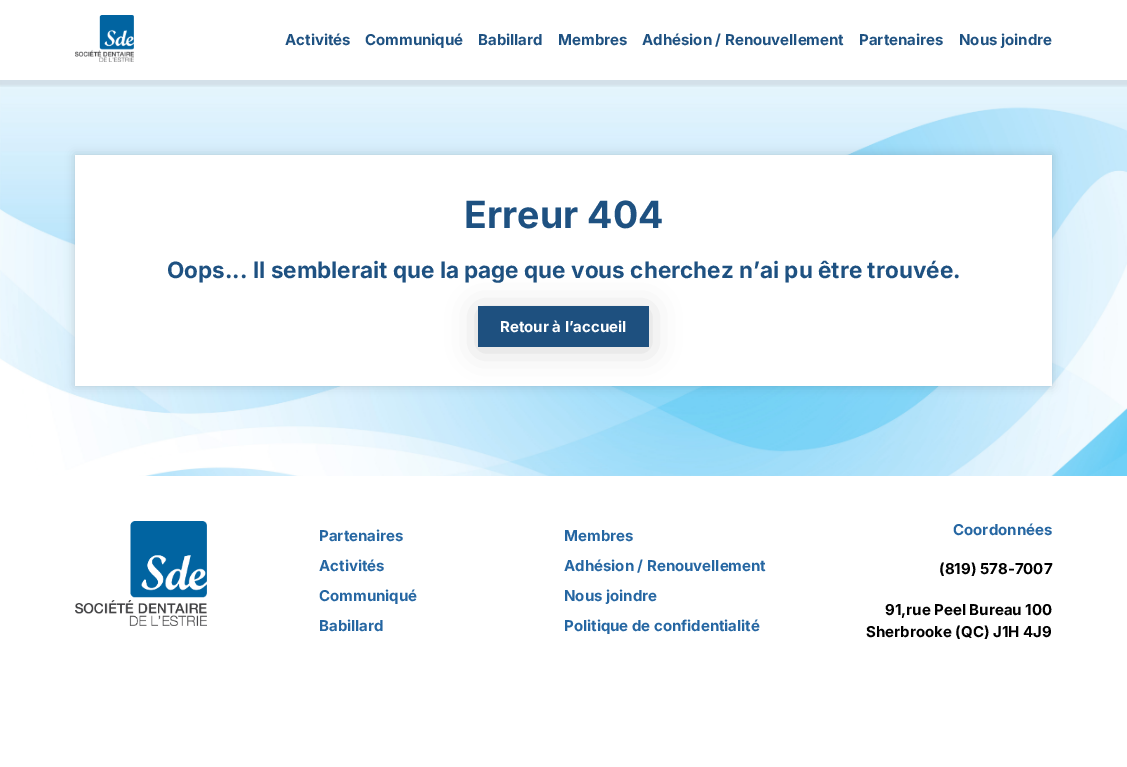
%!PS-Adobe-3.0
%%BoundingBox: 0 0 1127 767
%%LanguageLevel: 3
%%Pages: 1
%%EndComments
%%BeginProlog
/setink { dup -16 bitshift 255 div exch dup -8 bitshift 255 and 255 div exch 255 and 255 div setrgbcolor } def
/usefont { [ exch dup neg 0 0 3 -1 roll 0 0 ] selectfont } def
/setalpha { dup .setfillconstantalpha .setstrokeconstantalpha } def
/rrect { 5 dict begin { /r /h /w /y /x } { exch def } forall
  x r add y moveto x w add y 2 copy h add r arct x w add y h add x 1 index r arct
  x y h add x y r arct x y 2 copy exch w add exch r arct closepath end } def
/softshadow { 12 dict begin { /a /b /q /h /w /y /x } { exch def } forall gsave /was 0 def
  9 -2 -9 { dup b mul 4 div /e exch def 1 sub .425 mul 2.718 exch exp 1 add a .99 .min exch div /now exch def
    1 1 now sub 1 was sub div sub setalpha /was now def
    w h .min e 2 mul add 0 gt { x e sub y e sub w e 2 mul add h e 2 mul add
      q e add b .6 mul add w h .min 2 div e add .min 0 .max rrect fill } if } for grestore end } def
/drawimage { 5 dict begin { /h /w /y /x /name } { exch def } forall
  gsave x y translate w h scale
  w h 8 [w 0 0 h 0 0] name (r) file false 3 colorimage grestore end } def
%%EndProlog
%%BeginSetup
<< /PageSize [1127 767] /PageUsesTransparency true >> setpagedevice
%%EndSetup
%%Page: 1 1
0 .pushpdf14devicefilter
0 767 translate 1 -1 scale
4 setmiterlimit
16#FFFFFF setink
0 0 1127 767 rectfill
(img2.raw) 0 80 1127 396 drawimage
gsave
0 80 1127 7 rectclip
16#000000 setink
-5 -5 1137 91 0 1.5 0.08 softshadow
grestore
(img1.raw) 75 15 59 47 drawimage
/Inter-Bold 15 usefont
16#1E5181 setink
[
    [(Activités) 285 45]
    [(Communiqué) 365 45]
    [(Babillard) 478 45]
    [(Membres) 558 45]
    [(Adhésion / Renouvellement) 642 45]
    [(Partenaires) 859 45]
    [(Nous joindre) 959 45]
] { aload pop moveto show } forall
16#000000 setink
75 155 977 231 0 5 0.16 softshadow
16#FFFFFF setink
75 155 977 231 rectfill
/Inter-Bold 37.5 usefont
16#1E5181 setink
464 228 moveto (Erreur 404) show
/Inter-Bold 22.5 usefont
167 278 moveto (Oops... Il semblerait que la page que vous cherchez n’ai pu être trouvée.) show
16#000000 setink
478 309 171 41 0 15 0.16 softshadow
16#1E507F setink
478 306 171 41 rectfill
/Inter-Bold 15 usefont
16#FFFFFF setink
500 332 moveto (Retour à l’accueil) show
(img3.raw) 75 521 132 105 drawimage
16#2566A2 setink
[
    [(Partenaires) 319 541]
    [(Activités) 319 571]
    [(Communiqué) 319 601]
    [(Babillard) 319 631]
    [(Membres) 564 541]
    [(Adhésion / Renouvellement) 564 571]
    [(Nous joindre) 564 601]
    [(Politique de confidentialité) 564 631]
    [(Coordonnées) 953 535]
] { aload pop moveto show } forall
16#000000 setink
[
    [(\(819\) 578-7007) 939 574]
    [(91,rue Peel Bureau 100) 885 615]
    [(Sherbrooke \(QC\) J1H 4J9) 866 637]
] { aload pop moveto show } forall
.poppdf14devicefilter showpage
%%EOF
